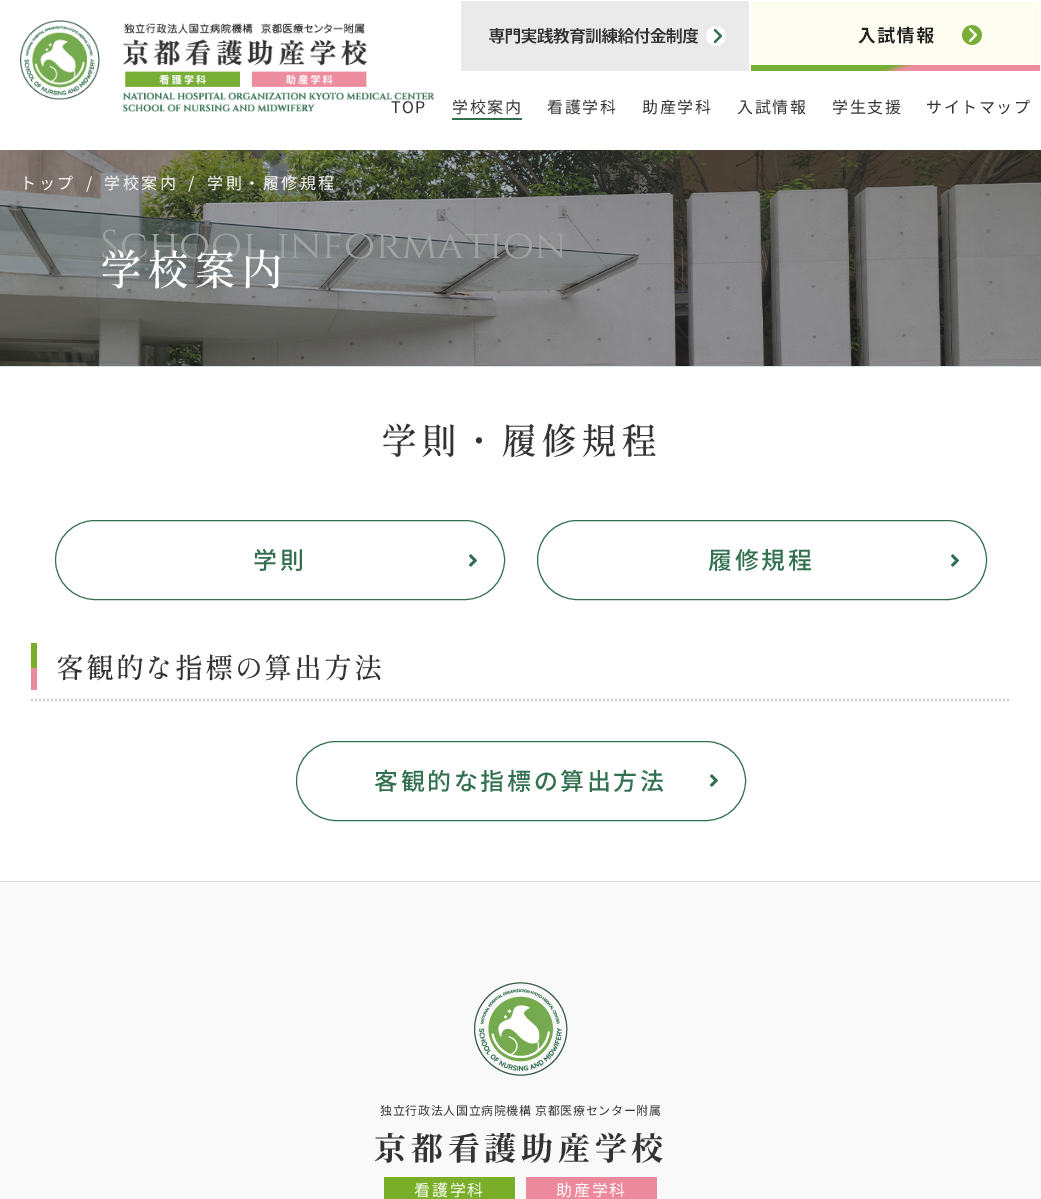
%!PS-Adobe-3.0
%%BoundingBox: 0 0 1041 1199
%%LanguageLevel: 3
%%Pages: 1
%%EndComments
%%BeginProlog
/setink { dup -16 bitshift 255 div exch dup -8 bitshift 255 and 255 div exch 255 and 255 div setrgbcolor } def
/usefont { [ exch dup neg 0 0 3 -1 roll 0 0 ] selectfont } def
/rrect { 5 dict begin { /r /h /w /y /x } { exch def } forall
  x r add y moveto x w add y 2 copy h add r arct x w add y h add x 1 index r arct
  x y h add x y r arct x y 2 copy exch w add exch r arct closepath end } def
/drawimage { 5 dict begin { /h /w /y /x /name } { exch def } forall
  gsave x y translate w h scale
  w h 8 [w 0 0 h 0 0] name (r) file false 3 colorimage grestore end } def
%%EndProlog
%%BeginSetup
<< /PageSize [1041 1199] >> setpagedevice
%%EndSetup
%%Page: 1 1
0 1199 translate 1 -1 scale
4 setmiterlimit
16#FFFFFF setink
0 0 1041 1199 rectfill
(img1.raw) 20 20 415 93 drawimage
(img2.raw) 461 1 288 70 drawimage
(img3.raw) 751 1 289 70 drawimage
/NotoSansJP-Regular 16 usefont
16#333333 setink
391 113 moveto 1.5 0 (TOP) ashow
452 113 moveto 1.5 0 (学校案内) ashow
16#327050 setink
452 118 70 2 rectfill
16#333333 setink
547 113 moveto 1.5 0 (看護学科) ashow
642 113 moveto 1.5 0 (助産学科) ashow
737 113 moveto 1.5 0 (入試情報) ashow
832 113 moveto 1.5 0 (学生支援) ashow
926 113 moveto 1.5 0 (サイトマップ) ashow
(img4.raw) 0 150 1041 216 drawimage
16#DAE2E8 setink
0 366 1041 1 rectfill
16#FFFFFF setink
20 189 moveto 2.5 0 (トップ) ashow
86 189 moveto 2.5 0 (/) ashow
104 189 moveto 2.5 0 (学校案内) ashow
188 189 moveto 2.5 0 (/) ashow
207 189 moveto 2.5 0 (学則・履修規程) ashow
/Cinzel-Regular 40 usefont
16#A0A4A1 setink
100 258 moveto 0.8 0 (School information) ashow
/ShipporiMinchoB1-Medium 42 usefont
16#FFFFFF setink
100 285 moveto 5 0 (学校案内) ashow
/ShipporiMinchoB1-Medium 36 usefont
16#333333 setink
381 454 moveto 4 0 (学則・履修規程) ashow
16#327050 setink
55.5 520.5 449 79 39.5 rrect stroke
/NotoSansJP-Medium 24 usefont
253 569 moveto 2.6 0 (学則) ashow
(img5.raw) 469 554 8 13 drawimage
537.5 520.5 449 79 39.5 rrect stroke
708 569 moveto 2.6 0 (履修規程) ashow
(img5.raw) 951 554 8 13 drawimage
16#CBCBCB setink
2 setlinewidth
[2 2] 0 setdash
31 700 moveto 1011 700 lineto stroke
16#7BAE28 setink
31 643 6 27 rectfill
/ShipporiMinchoB1-Medium 28 usefont
16#333333 setink
56 678 moveto 1.75 0 (客観的な指標の算出方法) ashow
16#ED899D setink
31 668 6 22 rectfill
16#327050 setink
1 setlinewidth
[] 0 setdash
296.5 741.5 449 79 39.5 rrect stroke
/NotoSansJP-Medium 24 usefont
374 790 moveto 2.6 0 (客観的な指標の算出方法) ashow
(img5.raw) 710 774 8 13 drawimage
16#F9F9F9 setink
0 882 1041 317 rectfill
16#DBDBDB setink
0 881 1041 1 rectfill
(img6.raw) 474 982 94 94 drawimage
/NotoSansJP-Regular 12 usefont
16#333333 setink
380 1115 moveto 0.65 0 (独立行政法人国立病院機構 京都医療センター附属) ashow
/NotoSerifJP-Bold 32 usefont
374 1160 moveto 4.75 0 (京都看護助産学校) ashow
16#7BAE28 setink
384 1177 131 22 rectfill
/NotoSansJP-Regular 16 usefont
16#FFFFFF setink
414 1196 moveto 1.75 0 (看護学科) ashow
16#ED899D setink
526 1177 131 22 rectfill
16#FFFFFF setink
556 1196 moveto 1.75 0 (助産学科) ashow
showpage
%%EOF
